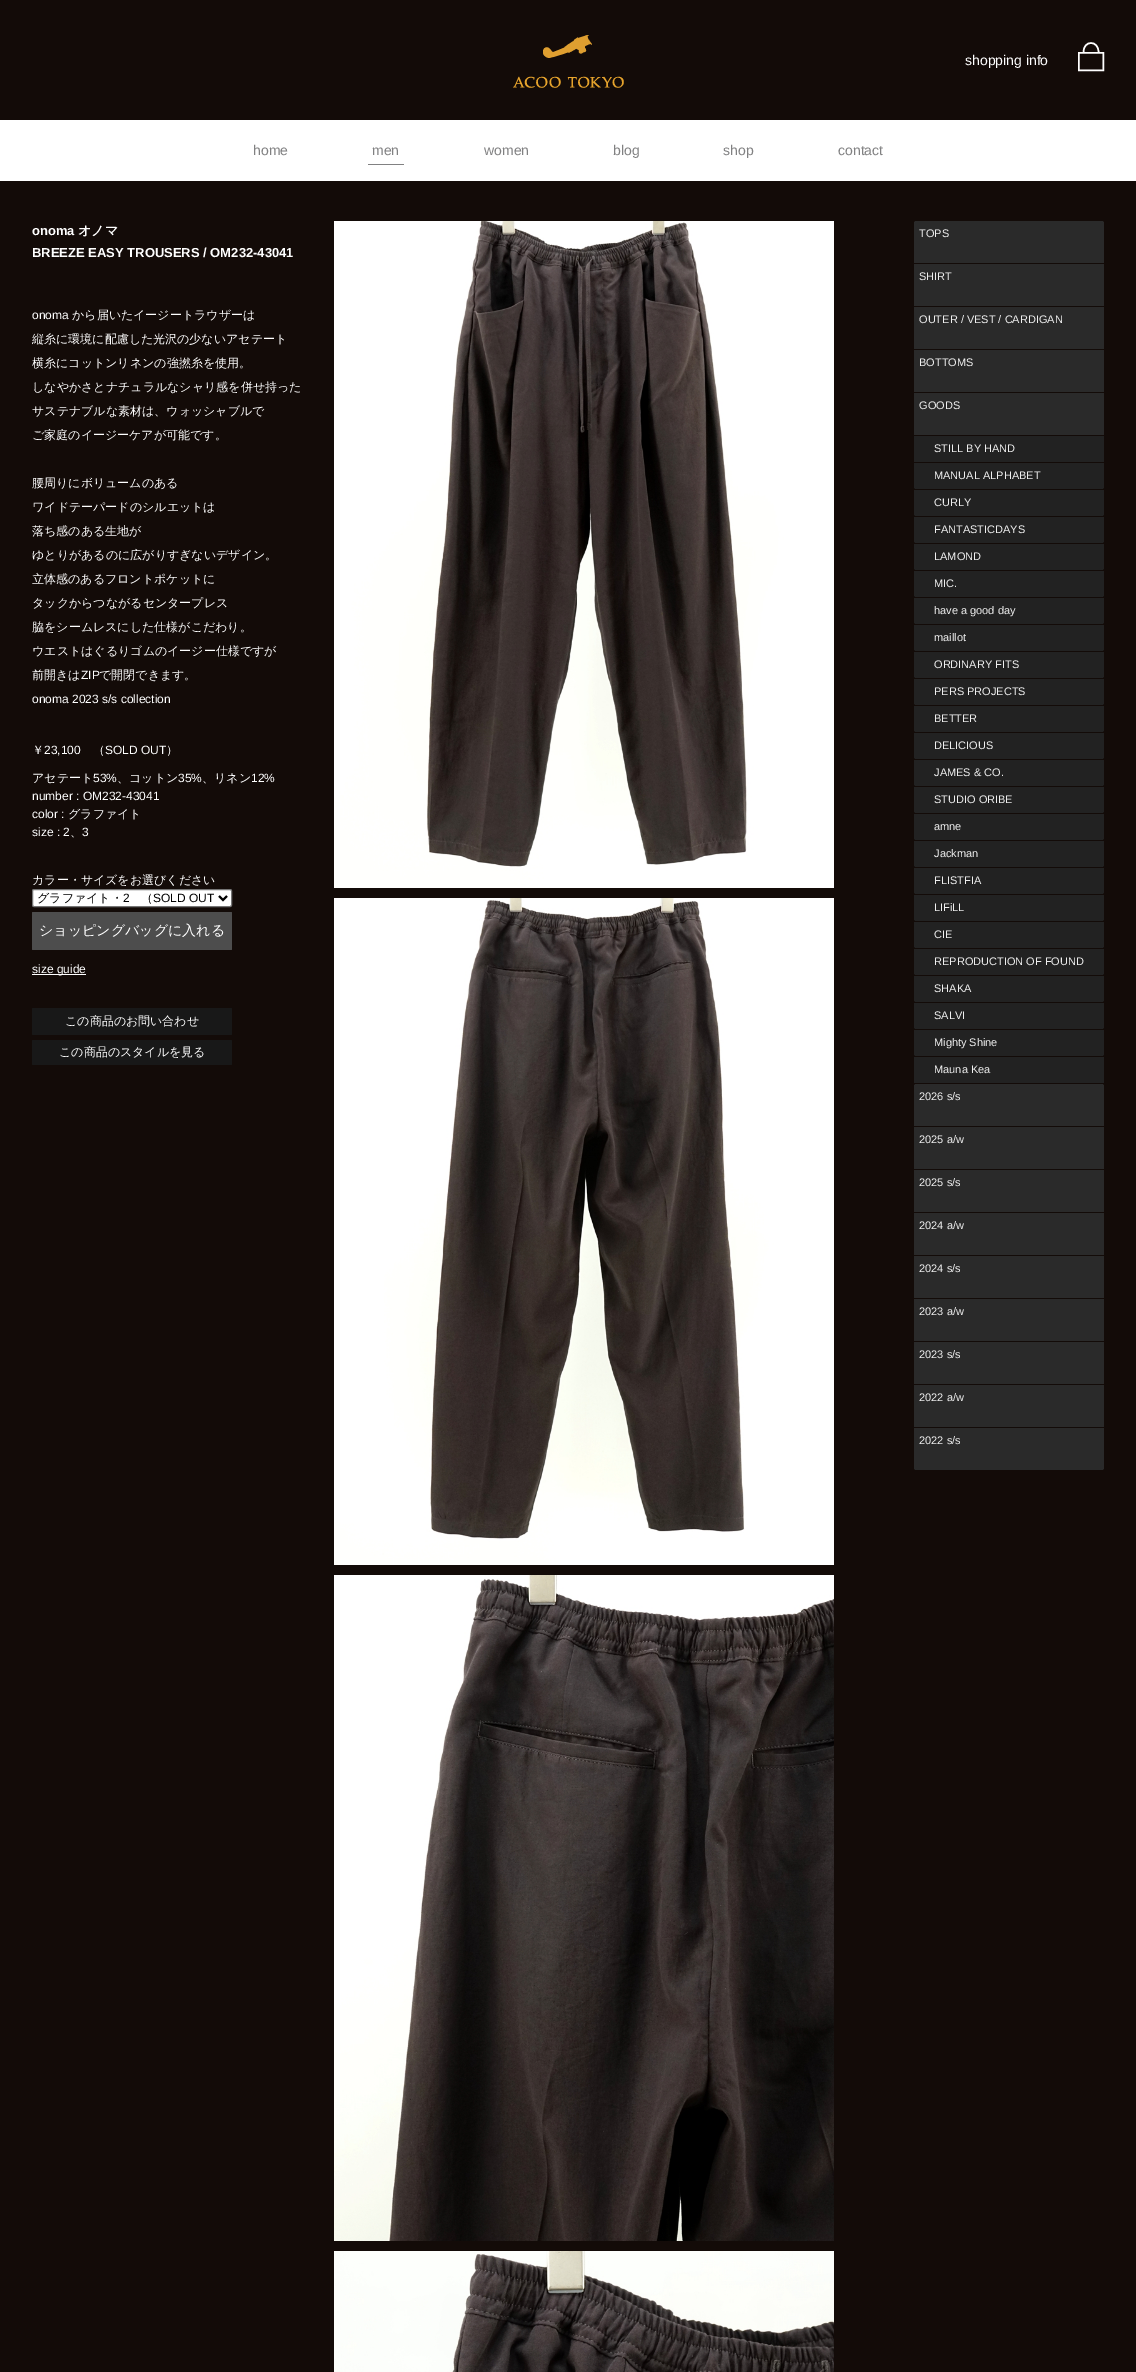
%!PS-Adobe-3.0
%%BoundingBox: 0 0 1136 2372
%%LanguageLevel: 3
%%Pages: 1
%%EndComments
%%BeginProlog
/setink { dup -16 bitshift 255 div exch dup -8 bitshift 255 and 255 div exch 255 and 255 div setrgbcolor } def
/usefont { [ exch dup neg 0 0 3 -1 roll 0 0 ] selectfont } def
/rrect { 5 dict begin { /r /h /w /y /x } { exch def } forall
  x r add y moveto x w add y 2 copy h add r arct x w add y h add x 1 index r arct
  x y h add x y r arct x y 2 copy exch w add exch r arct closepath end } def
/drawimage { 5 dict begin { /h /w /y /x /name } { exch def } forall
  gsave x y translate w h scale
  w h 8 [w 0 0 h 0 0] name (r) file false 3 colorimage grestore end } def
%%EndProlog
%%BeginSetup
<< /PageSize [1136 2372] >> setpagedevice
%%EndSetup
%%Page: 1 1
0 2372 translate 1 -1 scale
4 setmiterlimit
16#130B08 setink
0 0 1136 2372 rectfill
(img1.raw) 513 35 111 53 drawimage
/LiberationSans-Regular 14 usefont
16#FFFFFF setink
965 65 moveto (shopping info) show
1.5 setlinewidth
1098.5 52 moveto 1098.5 40 1083.5 40 1083.5 52 curveto stroke
1078.75 52.75 24.5 17.5 rectstroke
0 120 1136 61 rectfill
16#818182 setink
253 155 moveto (home) show
372 155 moveto (men) show
368 164 36 1 rectfill
[
    [(women) 484 155]
    [(blog) 613 155]
    [(shop) 723 155]
    [(contact) 838 155]
] { aload pop moveto show } forall
/LiberationSans-Bold 13 usefont
16#FFFFFF setink
32 235 moveto (onoma) show
/WenQuanYiZenHei-Bold 13 usefont
78 235 moveto (オノマ) show
/LiberationSans-Bold 13 usefont
32 257 moveto (BREEZE EASY TROUSERS / OM232-43041) show
/LiberationSans-Regular 12 usefont
32 319 moveto (onoma) show
/WenQuanYiZenHei-Medium 12 usefont
[
    [(から届いたイージートラウザーは) 72 319]
    [(縦糸に環境に配慮した光沢の少ないアセテート) 32 343]
    [(横糸にコットンリネンの強撚糸を使用。) 32 367]
    [(しなやかさとナチュラルなシャリ感を併せ持った) 32 391]
    [(サステナブルな素材は、ウォッシャブルで) 32 415]
    [(ご家庭のイージーケアが可能です。) 32 439]
    [(腰周りにボリュームのある) 32 487]
    [(ワイドテーパードのシルエットは) 32 511]
    [(落ち感のある生地が) 32 535]
    [(ゆとりがあるのに広がりすぎないデザイン。) 32 559]
    [(立体感のあるフロントポケットに) 32 583]
    [(タックからつながるセンタープレス) 32 607]
    [(脇をシームレスにした仕様がこだわり。) 32 631]
    [(ウエストはぐるりゴムのイージー仕様ですが) 32 655]
    [(前開きは) 32 679]
] { aload pop moveto show } forall
/LiberationSans-Regular 12 usefont
81 679 moveto (ZIP) show
/WenQuanYiZenHei-Medium 12 usefont
99 679 moveto (で開閉できます。) show
/LiberationSans-Regular 12 usefont
32 703 moveto (onoma 2023 s/s collection) show
/WenQuanYiZenHei-Medium 12 usefont
32 754 moveto (￥) show
/LiberationSans-Regular 12 usefont
44 754 moveto (23,100) show
/WenQuanYiZenHei-Medium 12 usefont
93 754 moveto (（) show
/LiberationSans-Regular 12 usefont
105 754 moveto (SOLD OUT) show
/WenQuanYiZenHei-Medium 12 usefont
166 754 moveto (）) show
32 782 moveto (アセテート) show
/LiberationSans-Regular 12 usefont
93 782 moveto (53%) show
/WenQuanYiZenHei-Medium 12 usefont
117 782 moveto (、コットン) show
/LiberationSans-Regular 12 usefont
178 782 moveto (35%) show
/WenQuanYiZenHei-Medium 12 usefont
202 782 moveto (、リネン) show
/LiberationSans-Regular 12 usefont
[
    [(12%) 251 782]
    [(number : OM232-43041) 32 800]
    [(color :) 32 818]
] { aload pop moveto show } forall
/WenQuanYiZenHei-Medium 12 usefont
68 818 moveto (グラファイト) show
/LiberationSans-Regular 12 usefont
32 836 moveto (size : 2) show
/WenQuanYiZenHei-Medium 12 usefont
70 836 moveto (、) show
/LiberationSans-Regular 12 usefont
82 836 moveto (3) show
/WenQuanYiZenHei-Medium 12 usefont
32 884 moveto (カラー・サイズをお選びください) show
32.5 889.5 199 17 1.5 rrect gsave fill grestore
16#767676 setink
1 setlinewidth
stroke
16#000000 setink
2 setlinewidth
219 896 moveto 223 900 lineto 227 896 lineto stroke
37 902 moveto (グラファイト・) show
/LiberationSans-Regular 12 usefont
123 902 moveto (2) show
/WenQuanYiZenHei-Medium 12 usefont
141 902 moveto (（) show
/LiberationSans-Regular 12 usefont
153 902 moveto (SOLD OUT) show
16#4D4D4D setink
32 912 200 38 1 rrect fill
/WenQuanYiZenHei-Medium 14 usefont
16#FFFFFF setink
39 935 moveto (ショッピングバッグに入れる) show
32 974 54 1 rectfill
/LiberationSans-Regular 12 usefont
32 973 moveto (size guide) show
16#181818 setink
32 1008 200 27 1 rrect fill
/WenQuanYiZenHei-Medium 12 usefont
16#FFFFFF setink
65 1025 moveto (この商品のお問い合わせ) show
16#181818 setink
32 1040 200 25 1 rrect fill
16#FFFFFF setink
59 1056 moveto (この商品のスタイルを見る) show
(img2.raw) 334 221 500 667 drawimage
(img3.raw) 334 898 500 667 drawimage
(img4.raw) 334 1575 500 666 drawimage
(img5.raw) 334 2251 500 121 drawimage
16#2A2A2A setink
916 221 moveto 1102 221 lineto 1103 221 1104 222 1104 223 curveto 1104 263 lineto 914 263 lineto 914 223 lineto 914 222 915 221 916 221 curveto closepath fill
/LiberationSans-Regular 11 usefont
16#EFEFEF setink
919 237 moveto (TOPS) show
16#2A2A2A setink
914 264 190 42 rectfill
16#EFEFEF setink
919 280 moveto (SHIRT) show
16#2A2A2A setink
914 307 190 42 rectfill
16#EFEFEF setink
919 323 moveto (OUTER / VEST / CARDIGAN) show
16#2A2A2A setink
914 350 190 42 rectfill
16#EFEFEF setink
919 366 moveto (BOTTOMS) show
16#2A2A2A setink
914 393 190 42 rectfill
16#EFEFEF setink
919 409 moveto (GOODS) show
16#222222 setink
914 436 190 26 rectfill
16#EFEFEF setink
934 452 moveto (STILL BY HAND) show
16#222222 setink
914 463 moveto 1104 463 lineto 1104 487 lineto 1104 488 1103 489 1102 489 curveto 916 489 lineto 915 489 914 488 914 487 curveto closepath fill
16#EFEFEF setink
934 479 moveto (MANUAL ALPHABET) show
16#222222 setink
914 490 moveto 1104 490 lineto 1104 514 lineto 1104 515 1103 516 1102 516 curveto 916 516 lineto 915 516 914 515 914 514 curveto closepath fill
16#EFEFEF setink
934 506 moveto (CURLY) show
16#222222 setink
914 517 moveto 1104 517 lineto 1104 541 lineto 1104 542 1103 543 1102 543 curveto 916 543 lineto 915 543 914 542 914 541 curveto closepath fill
16#EFEFEF setink
934 533 moveto (FANTASTICDAYS) show
16#222222 setink
914 544 moveto 1104 544 lineto 1104 568 lineto 1104 569 1103 570 1102 570 curveto 916 570 lineto 915 570 914 569 914 568 curveto closepath fill
16#EFEFEF setink
934 560 moveto (LAMOND) show
16#222222 setink
914 571 moveto 1104 571 lineto 1104 595 lineto 1104 596 1103 597 1102 597 curveto 916 597 lineto 915 597 914 596 914 595 curveto closepath fill
16#EFEFEF setink
934 587 moveto (MIC.) show
16#222222 setink
914 598 moveto 1104 598 lineto 1104 622 lineto 1104 623 1103 624 1102 624 curveto 916 624 lineto 915 624 914 623 914 622 curveto closepath fill
16#EFEFEF setink
934 614 moveto (have a good day) show
16#222222 setink
914 625 moveto 1104 625 lineto 1104 649 lineto 1104 650 1103 651 1102 651 curveto 916 651 lineto 915 651 914 650 914 649 curveto closepath fill
16#EFEFEF setink
934 641 moveto (maillot) show
16#222222 setink
914 652 moveto 1104 652 lineto 1104 676 lineto 1104 677 1103 678 1102 678 curveto 916 678 lineto 915 678 914 677 914 676 curveto closepath fill
16#EFEFEF setink
934 668 moveto (ORDINARY FITS) show
16#222222 setink
914 679 moveto 1104 679 lineto 1104 703 lineto 1104 704 1103 705 1102 705 curveto 916 705 lineto 915 705 914 704 914 703 curveto closepath fill
16#EFEFEF setink
934 695 moveto (PERS PROJECTS) show
16#222222 setink
914 706 moveto 1104 706 lineto 1104 730 lineto 1104 731 1103 732 1102 732 curveto 916 732 lineto 915 732 914 731 914 730 curveto closepath fill
16#EFEFEF setink
934 722 moveto (BETTER) show
16#222222 setink
914 733 moveto 1104 733 lineto 1104 757 lineto 1104 758 1103 759 1102 759 curveto 916 759 lineto 915 759 914 758 914 757 curveto closepath fill
16#EFEFEF setink
934 749 moveto (DELICIOUS) show
16#222222 setink
914 760 moveto 1104 760 lineto 1104 784 lineto 1104 785 1103 786 1102 786 curveto 916 786 lineto 915 786 914 785 914 784 curveto closepath fill
16#EFEFEF setink
934 776 moveto (JAMES & CO.) show
16#222222 setink
914 787 moveto 1104 787 lineto 1104 811 lineto 1104 812 1103 813 1102 813 curveto 916 813 lineto 915 813 914 812 914 811 curveto closepath fill
16#EFEFEF setink
934 803 moveto (STUDIO ORIBE) show
16#222222 setink
914 814 moveto 1104 814 lineto 1104 838 lineto 1104 839 1103 840 1102 840 curveto 916 840 lineto 915 840 914 839 914 838 curveto closepath fill
16#EFEFEF setink
934 830 moveto (amne) show
16#222222 setink
914 841 moveto 1104 841 lineto 1104 865 lineto 1104 866 1103 867 1102 867 curveto 916 867 lineto 915 867 914 866 914 865 curveto closepath fill
16#EFEFEF setink
934 857 moveto (Jackman) show
16#222222 setink
914 868 moveto 1104 868 lineto 1104 892 lineto 1104 893 1103 894 1102 894 curveto 916 894 lineto 915 894 914 893 914 892 curveto closepath fill
16#EFEFEF setink
934 884 moveto (FLISTFIA) show
16#222222 setink
914 895 moveto 1104 895 lineto 1104 919 lineto 1104 920 1103 921 1102 921 curveto 916 921 lineto 915 921 914 920 914 919 curveto closepath fill
16#EFEFEF setink
934 911 moveto (LIFiLL) show
16#222222 setink
914 922 moveto 1104 922 lineto 1104 946 lineto 1104 947 1103 948 1102 948 curveto 916 948 lineto 915 948 914 947 914 946 curveto closepath fill
16#EFEFEF setink
934 938 moveto (CIE) show
16#222222 setink
914 949 moveto 1104 949 lineto 1104 973 lineto 1104 974 1103 975 1102 975 curveto 916 975 lineto 915 975 914 974 914 973 curveto closepath fill
16#EFEFEF setink
934 965 moveto (REPRODUCTION OF FOUND) show
16#222222 setink
914 976 moveto 1104 976 lineto 1104 1000 lineto 1104 1001 1103 1002 1102 1002 curveto 916 1002 lineto 915 1002 914 1001 914 1000 curveto closepath fill
16#EFEFEF setink
934 992 moveto (SHAKA) show
16#222222 setink
914 1003 moveto 1104 1003 lineto 1104 1027 lineto 1104 1028 1103 1029 1102 1029 curveto 916 1029 lineto 915 1029 914 1028 914 1027 curveto closepath fill
16#EFEFEF setink
934 1019 moveto (SALVI) show
16#222222 setink
914 1030 moveto 1104 1030 lineto 1104 1054 lineto 1104 1055 1103 1056 1102 1056 curveto 916 1056 lineto 915 1056 914 1055 914 1054 curveto closepath fill
16#EFEFEF setink
934 1046 moveto (Mighty Shine) show
16#222222 setink
914 1057 190 26 rectfill
16#EFEFEF setink
934 1073 moveto (Mauna Kea) show
16#2A2A2A setink
916 1084 moveto 1102 1084 lineto 1103 1084 1104 1085 1104 1086 curveto 1104 1126 lineto 914 1126 lineto 914 1086 lineto 914 1085 915 1084 916 1084 curveto closepath fill
16#EFEFEF setink
919 1100 moveto (2026 s/s) show
16#2A2A2A setink
914 1127 190 42 rectfill
16#EFEFEF setink
919 1143 moveto (2025 a/w) show
16#2A2A2A setink
914 1170 190 42 rectfill
16#EFEFEF setink
919 1186 moveto (2025 s/s) show
16#2A2A2A setink
914 1213 190 42 rectfill
16#EFEFEF setink
919 1229 moveto (2024 a/w) show
16#2A2A2A setink
914 1256 190 42 rectfill
16#EFEFEF setink
919 1272 moveto (2024 s/s) show
16#2A2A2A setink
914 1299 190 42 rectfill
16#EFEFEF setink
919 1315 moveto (2023 a/w) show
16#2A2A2A setink
914 1342 190 42 rectfill
16#EFEFEF setink
919 1358 moveto (2023 s/s) show
16#2A2A2A setink
914 1385 190 42 rectfill
16#EFEFEF setink
919 1401 moveto (2022 a/w) show
16#2A2A2A setink
914 1428 moveto 1104 1428 lineto 1104 1468 lineto 1104 1469 1103 1470 1102 1470 curveto 916 1470 lineto 915 1470 914 1469 914 1468 curveto closepath fill
16#EFEFEF setink
919 1444 moveto (2022 s/s) show
showpage
%%EOF
